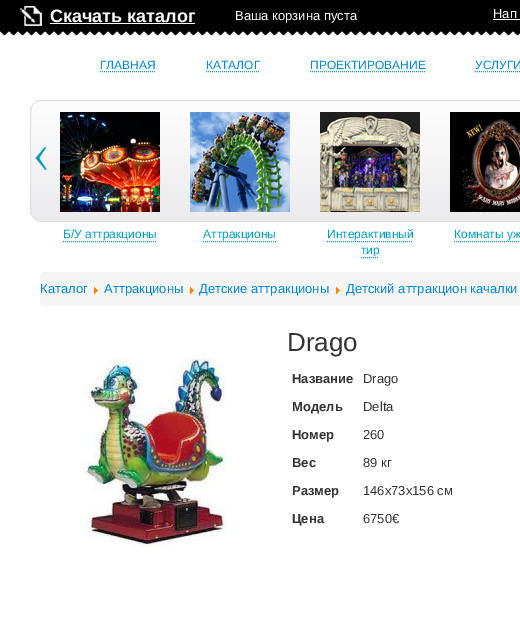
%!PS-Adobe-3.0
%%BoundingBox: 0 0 520 620
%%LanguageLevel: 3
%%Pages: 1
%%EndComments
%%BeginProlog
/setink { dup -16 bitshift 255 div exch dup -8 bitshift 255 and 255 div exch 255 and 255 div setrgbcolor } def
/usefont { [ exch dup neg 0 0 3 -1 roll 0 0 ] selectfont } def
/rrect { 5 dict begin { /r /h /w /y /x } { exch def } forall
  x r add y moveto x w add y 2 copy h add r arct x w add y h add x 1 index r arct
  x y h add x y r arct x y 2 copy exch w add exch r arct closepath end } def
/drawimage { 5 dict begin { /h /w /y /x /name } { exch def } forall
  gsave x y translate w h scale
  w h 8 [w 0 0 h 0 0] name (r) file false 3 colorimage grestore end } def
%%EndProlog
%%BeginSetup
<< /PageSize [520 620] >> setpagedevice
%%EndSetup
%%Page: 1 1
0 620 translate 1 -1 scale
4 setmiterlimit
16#FFFFFF setink
0 0 520 620 rectfill
(img1.raw) 0 0 520 36 drawimage
(img2.raw) 20 6 22 20 drawimage
/LiberationSans-Bold 18 usefont
50 22 moveto (Скачать каталог) show
50 23 145 1 rectfill
/LiberationSans-Regular 13 usefont
235 20 moveto (Ваша корзина пуста) show
16#000000 setink
481 24 39 4 rectfill
16#FFFFFF setink
493 18 moveto (Нап) show
493 19 27 1 rectfill
16#019BB7 setink
[1 1] 0 setdash
100 71.5 moveto 156 71.5 lineto stroke
/LiberationSans-Regular 12 usefont
16#0088CC setink
100 69 moveto (ГЛАВНАЯ) show
16#019BB7 setink
206 71.5 moveto 260 71.5 lineto stroke
16#0088CC setink
206 69 moveto (КАТАЛОГ) show
16#019BB7 setink
310 71.5 moveto 425 71.5 lineto stroke
16#0088CC setink
310 69 moveto (ПРОЕКТИРОВАНИЕ) show
16#019BB7 setink
475 71.5 moveto 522 71.5 lineto stroke
16#0088CC setink
475 69 moveto (УСЛУГИ) show
(img3.raw) 30 100 490 122 drawimage
(img4.raw) 35 147 12 23 drawimage
(img5.raw) 60 112 100 100 drawimage
16#019BB7 setink
63 238 moveto (Б/У аттракционы) show
63 241.5 moveto 157 241.5 lineto stroke
(img6.raw) 190 112 100 100 drawimage
203 238 moveto (Аттракционы) show
203 241.5 moveto 277 241.5 lineto stroke
(img7.raw) 320 112 100 100 drawimage
327 238 moveto (Интерактивный) show
327 241.5 moveto 413 241.5 lineto stroke
361 254 moveto (тир) show
361 257.5 moveto 379 257.5 lineto stroke
(img8.raw) 450 112 70 100 drawimage
454 238 moveto (Комнаты уж) show
454 241.5 moveto 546 241.5 lineto stroke
16#F5F5F5 setink
40 272 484 34 4 rrect fill
/LiberationSans-Regular 13 usefont
16#0088CC setink
40 293 moveto (Каталог) show
(img9.raw) 94 287 4 7 drawimage
104 293 moveto (Аттракционы) show
(img9.raw) 190 287 4 7 drawimage
199 293 moveto (Детские аттракционы) show
(img9.raw) 336 287 4 7 drawimage
346 293 moveto (Детский аттракцион качалки) show
/LiberationSans-Regular 26 usefont
16#333333 setink
287 351 moveto (Drago) show
(img10.raw) 83 358 147 189 drawimage
/LiberationSans-Bold 13 usefont
292 383 moveto (Название) show
/LiberationSans-Regular 13 usefont
363 383 moveto (Drago) show
/LiberationSans-Bold 13 usefont
292 411 moveto (Модель) show
/LiberationSans-Regular 13 usefont
363 411 moveto (Delta) show
/LiberationSans-Bold 13 usefont
292 439 moveto (Номер) show
/LiberationSans-Regular 13 usefont
363 439 moveto (260) show
/LiberationSans-Bold 13 usefont
292 467 moveto (Вес) show
/LiberationSans-Regular 13 usefont
363 467 moveto (89 кг) show
/LiberationSans-Bold 13 usefont
292 495 moveto (Размер) show
/LiberationSans-Regular 13 usefont
363 495 moveto (146х73x156 см) show
/LiberationSans-Bold 13 usefont
292 523 moveto (Цена) show
/LiberationSans-Regular 13 usefont
363 523 moveto (6750€) show
showpage
%%EOF
